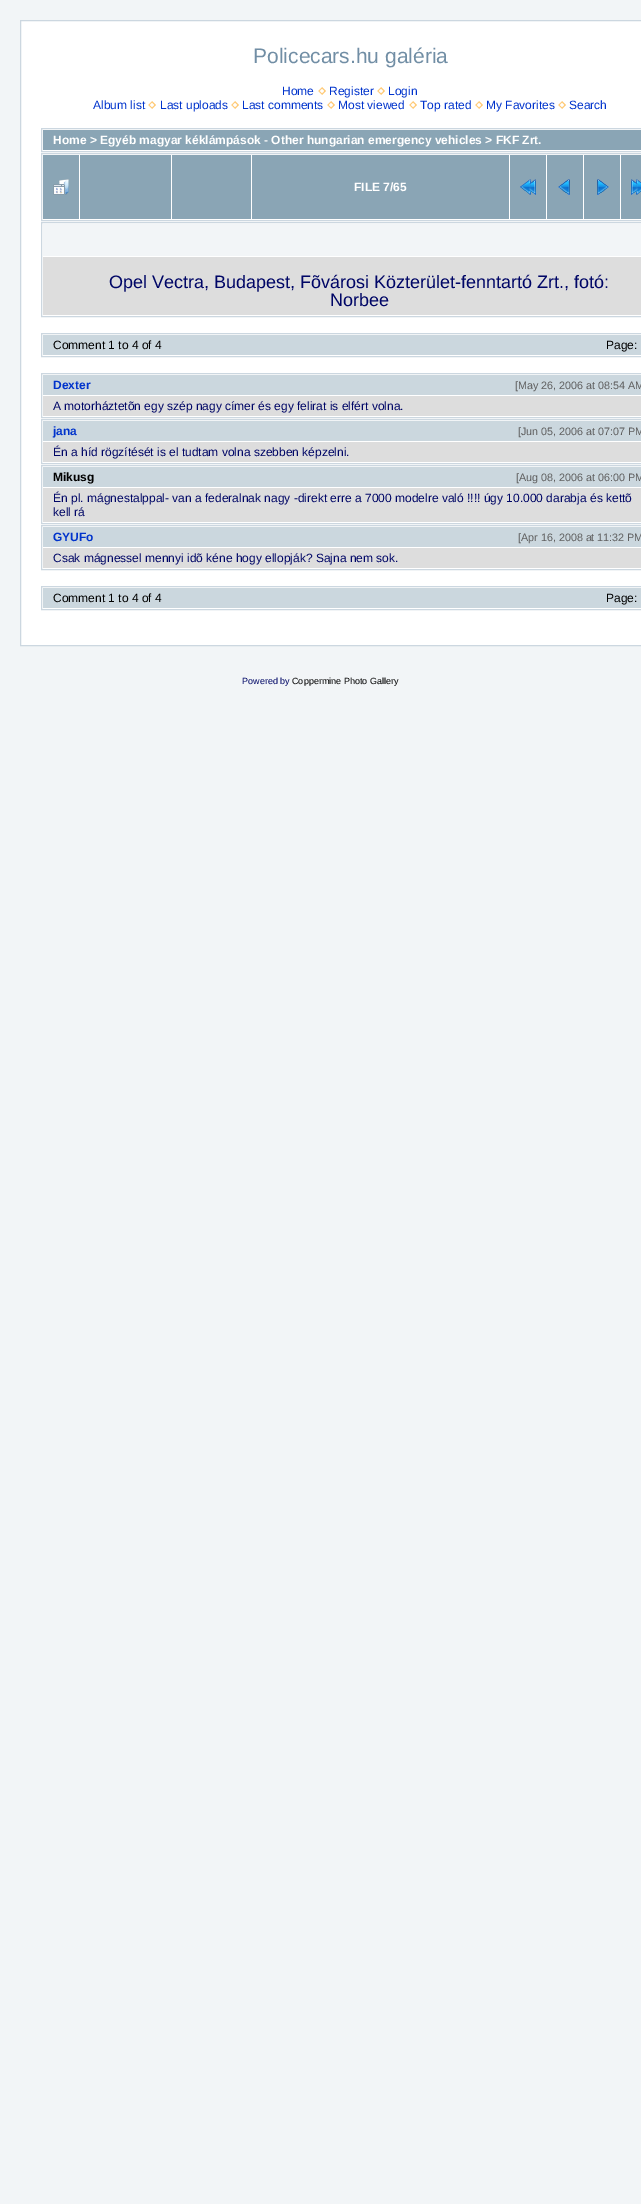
%!PS-Adobe-3.0
%%BoundingBox: 0 0 641 2204
%%LanguageLevel: 3
%%Pages: 1
%%EndComments
%%BeginProlog
/setink { dup -16 bitshift 255 div exch dup -8 bitshift 255 and 255 div exch 255 and 255 div setrgbcolor } def
/usefont { [ exch dup neg 0 0 3 -1 roll 0 0 ] selectfont } def
/drawimage { 5 dict begin { /h /w /y /x /name } { exch def } forall
  gsave x y translate w h scale
  w h 8 [w 0 0 h 0 0] name (r) file false 3 colorimage grestore end } def
%%EndProlog
%%BeginSetup
<< /PageSize [641 2204] >> setpagedevice
%%EndSetup
%%Page: 1 1
0 2204 translate 1 -1 scale
4 setmiterlimit
16#F2F5F7 setink
0 0 641 2204 rectfill
16#FFFFFF setink
20.5 20.5 moveto 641.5 20.5 lineto 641.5 645.5 lineto 20.5 645.5 lineto closepath gsave fill grestore
16#CCD7E0 setink
stroke
/LiberationSans-Regular 21 usefont
16#718EA5 setink
253 63 moveto (Policecars.hu galéria) show
/LiberationSans-Regular 12 usefont
16#0033CC setink
282 95 moveto (Home) show
(img1.raw) 318 87 8 8 drawimage
329 95 moveto (Register) show
(img1.raw) 377 87 8 8 drawimage
388 95 moveto (Login) show
93 109 moveto (Album list) show
(img1.raw) 148 101 8 8 drawimage
160 109 moveto (Last uploads) show
(img1.raw) 231 101 8 8 drawimage
242 109 moveto (Last comments) show
(img1.raw) 327 101 8 8 drawimage
338 109 moveto (Most viewed) show
(img1.raw) 409 101 8 8 drawimage
420 109 moveto (Top rated) show
(img1.raw) 475 101 8 8 drawimage
486 109 moveto (My Favorites) show
(img1.raw) 558 101 8 8 drawimage
569 109 moveto (Search) show
16#CCD7E0 setink
41.5 128.5 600 23 rectstroke
16#8AA5B5 setink
43 130 598 20 rectfill
/LiberationSans-Bold 12 usefont
16#FFFFFF setink
53 144 moveto (Home > Egyéb magyar kéklámpások - Other hungarian emergency vehicles > FKF Zrt.) show
16#CCD7E0 setink
41.5 153.5 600 67 rectstroke
16#8AA5B5 setink
43 155 36 64 rectfill
(img2.raw) 53 179 16 16 drawimage
[
    [80 155 91 64 16#8AA5B5]
    [172 155 79 64 16#8AA5B5]
    [252 155 257 64 16#8AA5B5]
] { aload pop setink rectfill } forall
16#FFFFFF setink
354 191 moveto (FILE 7/65) show
16#8AA5B5 setink
510 155 36 64 rectfill
(img3.raw) 520 179 16 16 drawimage
547 155 36 64 rectfill
(img4.raw) 558 179 12 16 drawimage
584 155 36 64 rectfill
(img5.raw) 597 179 12 16 drawimage
621 155 20 64 rectfill
(img6.raw) 631 179 10 16 drawimage
16#CCD7E0 setink
41.5 222.5 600 94 rectstroke
16#F2F5F7 setink
43 224 598 32 rectfill
16#DDDDDD setink
43 257 598 58 rectfill
/LiberationSans-Regular 18 usefont
16#000666 setink
109 288 moveto (Opel Vectra, Budapest, Fõvárosi Közterület-fenntartó Zrt., fotó:) show
330 306 moveto (Norbee) show
16#CCD7E0 setink
41.5 333.5 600 23 rectstroke
16#CBD7DE setink
43 335 598 20 rectfill
/LiberationSans-Regular 12 usefont
16#000000 setink
53 349 moveto (Comment 1 to 4 of 4) show
606 349 moveto (Page:) show
16#CCD7E0 setink
41.5 373.5 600 44 rectstroke
16#CBD7DE setink
43 375 598 20 rectfill
/LiberationSans-Bold 12 usefont
16#0033CC setink
53 389 moveto (Dexter) show
/LiberationSans-Regular 10.75 usefont
16#5F5F5F setink
515 389 moveto ([May 26, 2006 at 08:54 AM) show
16#DDDDDD setink
43 396 598 20 rectfill
/LiberationSans-Regular 12 usefont
16#000666 setink
53 410 moveto (A motorháztetõn egy szép nagy címer és egy felirat is elfért volna.) show
16#CCD7E0 setink
41.5 419.5 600 44 rectstroke
16#CBD7DE setink
43 421 598 20 rectfill
/LiberationSans-Bold 12 usefont
16#0033CC setink
53 435 moveto (jana) show
/LiberationSans-Regular 10.75 usefont
16#5F5F5F setink
518 435 moveto ([Jun 05, 2006 at 07:07 PM) show
16#DDDDDD setink
43 442 598 20 rectfill
/LiberationSans-Regular 12 usefont
16#000666 setink
53 456 moveto (Én a híd rögzítését is el tudtam volna szebben képzelni.) show
16#CCD7E0 setink
41.5 465.5 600 58 rectstroke
16#CBD7DE setink
43 467 598 20 rectfill
/LiberationSans-Bold 12 usefont
16#000000 setink
53 481 moveto (Mikusg) show
/LiberationSans-Regular 10.75 usefont
16#5F5F5F setink
516 481 moveto ([Aug 08, 2006 at 06:00 PM) show
16#DDDDDD setink
43 488 598 34 rectfill
/LiberationSans-Regular 12 usefont
16#000666 setink
53 502 moveto (Én pl. mágnestalppal- van a federalnak nagy -direkt erre a 7000 modelre való !!!! úgy 10.000 darabja és kettõ) show
53 516 moveto (kell rá) show
16#CCD7E0 setink
41.5 525.5 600 44 rectstroke
16#CBD7DE setink
43 527 598 20 rectfill
/LiberationSans-Bold 12 usefont
16#0033CC setink
53 541 moveto (GYUFo) show
/LiberationSans-Regular 10.75 usefont
16#5F5F5F setink
518 541 moveto ([Apr 16, 2008 at 11:32 PM) show
16#DDDDDD setink
43 548 598 20 rectfill
/LiberationSans-Regular 12 usefont
16#000666 setink
53 562 moveto (Csak mágnessel mennyi idõ kéne hogy ellopják? Sajna nem sok.) show
16#CCD7E0 setink
41.5 586.5 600 23 rectstroke
16#CBD7DE setink
43 588 598 20 rectfill
16#000000 setink
53 602 moveto (Comment 1 to 4 of 4) show
606 602 moveto (Page:) show
/LiberationSans-Regular 9 usefont
16#000666 setink
242 684 moveto (Powered by) show
16#000000 setink
292 684 moveto (Coppermine Photo Gallery) show
showpage
%%EOF
